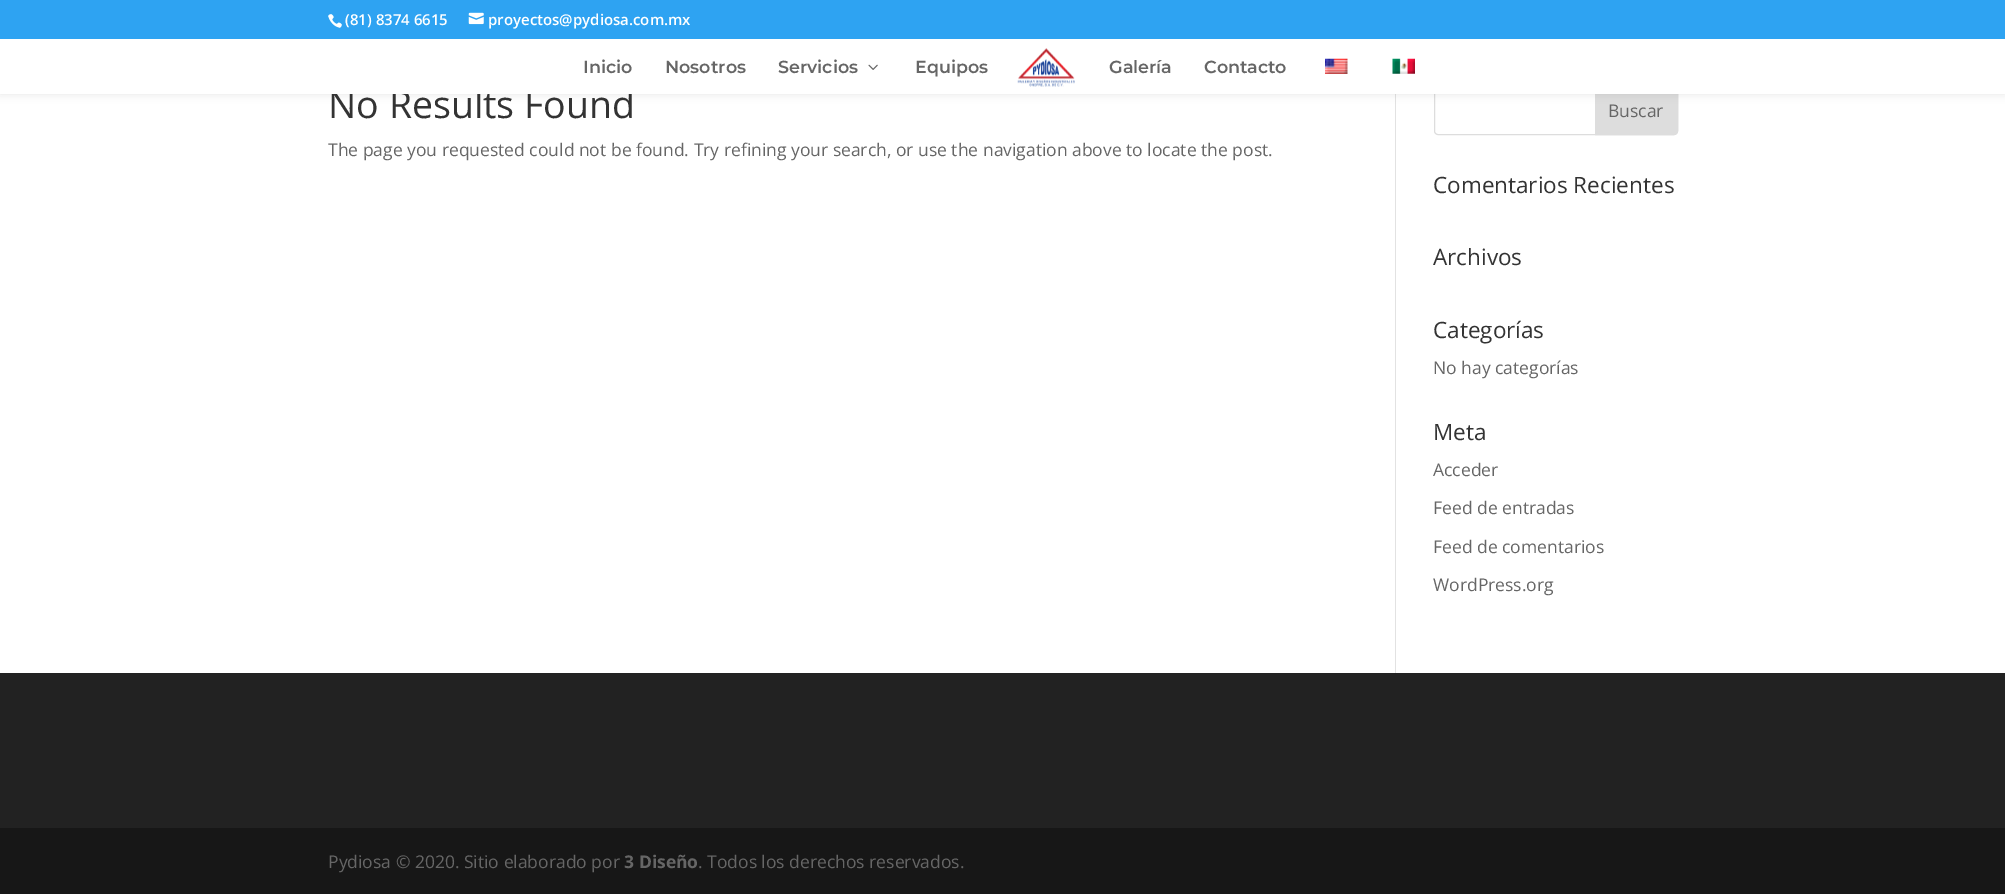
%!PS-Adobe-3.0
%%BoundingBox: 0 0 2005 894
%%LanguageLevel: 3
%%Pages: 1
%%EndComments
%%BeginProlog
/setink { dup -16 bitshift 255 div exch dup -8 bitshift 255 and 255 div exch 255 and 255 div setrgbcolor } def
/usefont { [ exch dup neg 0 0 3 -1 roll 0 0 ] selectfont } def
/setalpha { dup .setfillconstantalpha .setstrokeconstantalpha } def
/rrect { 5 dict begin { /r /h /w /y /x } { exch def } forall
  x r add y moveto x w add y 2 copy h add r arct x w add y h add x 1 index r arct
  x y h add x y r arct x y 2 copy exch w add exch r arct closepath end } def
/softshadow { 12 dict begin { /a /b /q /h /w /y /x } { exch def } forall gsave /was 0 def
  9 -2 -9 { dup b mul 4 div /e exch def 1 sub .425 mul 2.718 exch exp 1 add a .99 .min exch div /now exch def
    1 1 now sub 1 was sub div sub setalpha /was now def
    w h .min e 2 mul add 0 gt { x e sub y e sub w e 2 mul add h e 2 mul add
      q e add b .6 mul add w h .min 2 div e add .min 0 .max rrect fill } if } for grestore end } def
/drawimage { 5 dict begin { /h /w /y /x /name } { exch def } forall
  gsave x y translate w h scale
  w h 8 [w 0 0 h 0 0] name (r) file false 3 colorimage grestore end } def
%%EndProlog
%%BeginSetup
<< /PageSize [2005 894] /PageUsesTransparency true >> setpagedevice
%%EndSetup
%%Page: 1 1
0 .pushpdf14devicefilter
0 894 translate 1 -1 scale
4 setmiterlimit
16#FFFFFF setink
0 0 2005 894 rectfill
16#DDDDDD setink
1434.5 85.5 243 49 3.5 rrect stroke
1595.5 85.5 moveto 1674 85.5 lineto 1676 85.5 1677.5 87 1677.5 89 curveto 1677.5 131 lineto 1677.5 133 1676 134.5 1674 134.5 curveto 1595.5 134.5 lineto closepath gsave fill grestore
stroke
16#E2E2E2 setink
1395 94 1 579 rectfill
16#000000 setink
0 39 2005 55 0 4.5 0.1 softshadow
16#2EA3F2 setink
0 0 2005 39 rectfill
(img1.raw) 328 14 14 14 drawimage
/OpenSans-SemiBold 15 usefont
16#FFFFFF setink
345 25 moveto (\(81\) 8374 6615) show
(img2.raw) 468 12 16 13 drawimage
488 25 moveto (proyectos@pydiosa.com.mx) show
/OpenSans-Regular 37.5 usefont
16#333333 setink
328 118 moveto (No Results Found) show
16#FFFFFF setink
0 39 2005 55 rectfill
/Montserrat-SemiBold 17.5 usefont
16#666666 setink
[
    [(Inicio) 583 73]
    [(Nosotros) 665 73]
    [(Servicios) 778 73]
] { aload pop moveto show } forall
(img3.raw) 868 64 10 6 drawimage
915 73 moveto (Equipos) show
(img4.raw) 1017 48 58 39 drawimage
1109 73 moveto (Galería) show
1204 73 moveto (Contacto) show
(img5.raw) 1325 58 23 16 drawimage
(img6.raw) 1392 58 23 16 drawimage
/OpenSans-Regular 17.5 usefont
328 156 moveto (The page you requested could not be found. Try refining your search, or use the navigation above to locate the post.) show
1608 117 moveto (Buscar) show
/OpenSans-Regular 22.5 usefont
16#333333 setink
[
    [(Comentarios Recientes) 1433 193]
    [(Archivos) 1433 265]
    [(Categorías) 1433 338]
] { aload pop moveto show } forall
/OpenSans-Regular 17.5 usefont
16#666666 setink
1433 374 moveto (No hay categorías) show
/OpenSans-Regular 22.5 usefont
16#333333 setink
1433 440 moveto (Meta) show
/OpenSans-Regular 17.5 usefont
16#666666 setink
[
    [(Acceder) 1433 476]
    [(Feed de entradas) 1433 514]
    [(Feed de comentarios) 1433 553]
    [(WordPress.org) 1433 591]
] { aload pop moveto show } forall
16#222222 setink
0 673 2005 155 rectfill
16#171717 setink
0 828 2005 66 rectfill
16#666666 setink
328 868 moveto (Pydiosa © 2020. Sitio elaborado por) show
/OpenSans-Bold 17.5 usefont
624 868 moveto (3 Diseño) show
/OpenSans-Regular 17.5 usefont
698 868 moveto (. Todos los derechos reservados.) show
.poppdf14devicefilter showpage
%%EOF
